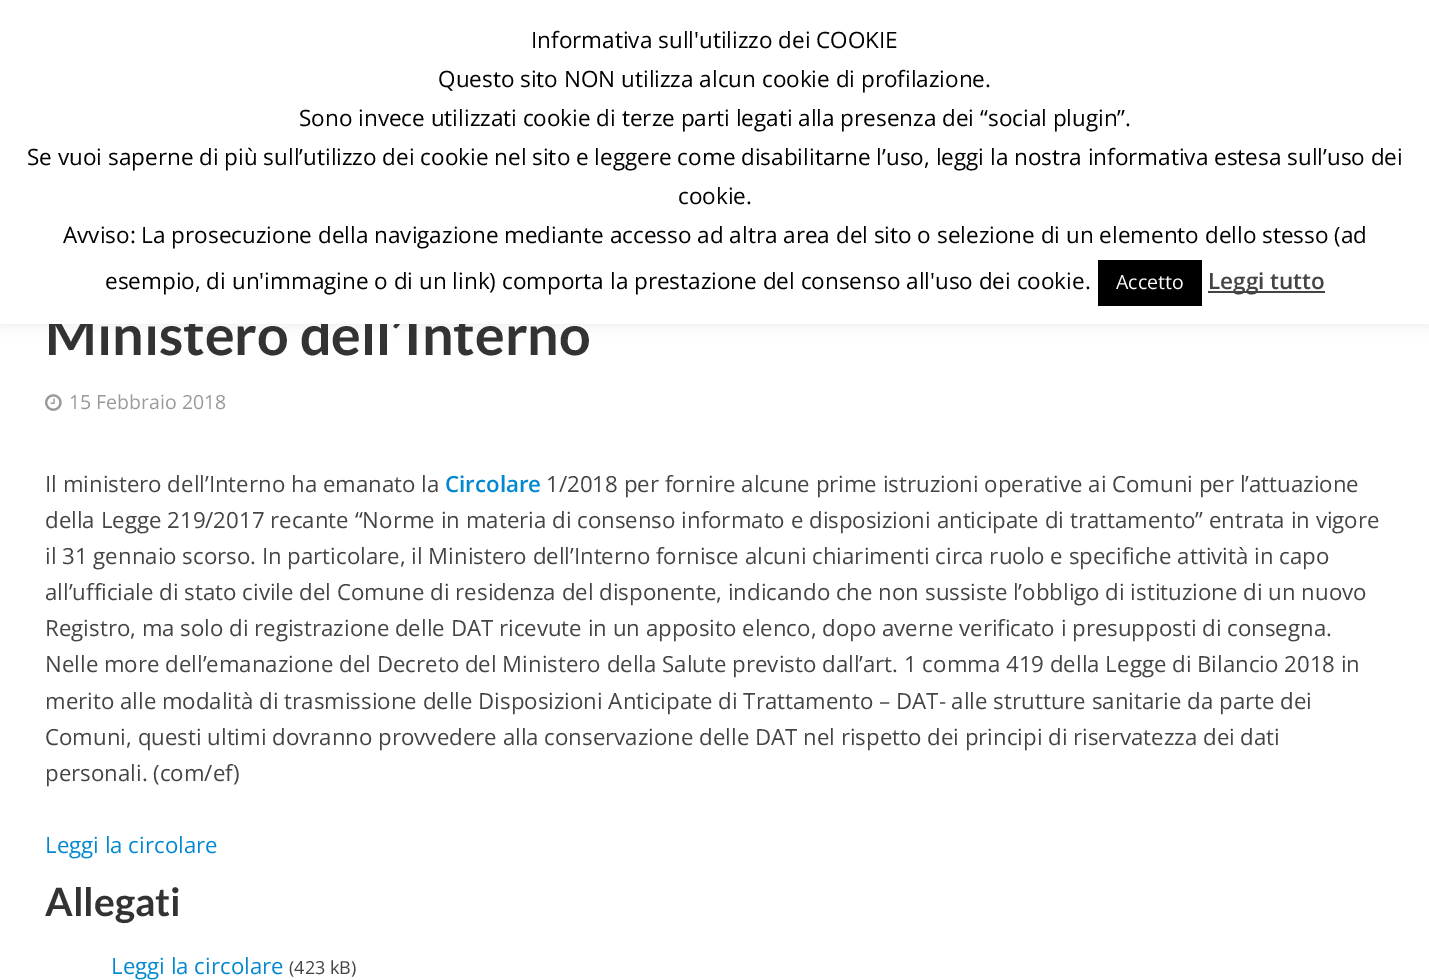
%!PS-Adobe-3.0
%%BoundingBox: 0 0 1429 980
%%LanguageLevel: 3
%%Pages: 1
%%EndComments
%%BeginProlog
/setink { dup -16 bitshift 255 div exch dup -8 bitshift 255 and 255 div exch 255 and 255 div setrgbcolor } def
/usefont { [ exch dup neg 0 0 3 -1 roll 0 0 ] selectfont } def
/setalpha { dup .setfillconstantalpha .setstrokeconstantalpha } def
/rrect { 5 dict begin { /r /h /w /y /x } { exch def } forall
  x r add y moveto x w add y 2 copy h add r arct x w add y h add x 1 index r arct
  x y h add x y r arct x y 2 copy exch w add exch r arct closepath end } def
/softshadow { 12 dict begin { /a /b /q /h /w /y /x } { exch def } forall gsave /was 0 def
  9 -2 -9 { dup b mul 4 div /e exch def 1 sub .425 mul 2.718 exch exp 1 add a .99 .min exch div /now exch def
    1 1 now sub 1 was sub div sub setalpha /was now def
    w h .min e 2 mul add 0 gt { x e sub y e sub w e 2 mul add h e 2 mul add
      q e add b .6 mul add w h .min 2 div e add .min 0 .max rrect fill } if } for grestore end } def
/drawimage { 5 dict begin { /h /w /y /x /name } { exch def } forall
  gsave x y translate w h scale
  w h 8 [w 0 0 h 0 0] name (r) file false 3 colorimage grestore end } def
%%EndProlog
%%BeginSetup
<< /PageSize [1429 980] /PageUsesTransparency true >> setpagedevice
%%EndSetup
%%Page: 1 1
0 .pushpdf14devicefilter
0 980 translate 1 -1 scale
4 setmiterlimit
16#FFFFFF setink
0 0 1429 980 rectfill
16#ACABAB setink
0 -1 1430 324 0 7.5 0.3 softshadow
/Lato-Bold 55.75 usefont
16#333333 setink
45 355 moveto (Ministero dell’Interno) show
16#FFFFFF setink
0 0 1429 324 rectfill
/OpenSans-Regular 22.5 usefont
16#000000 setink
[
    [(Informativa sull'utilizzo dei COOKIE) 531 48]
    [(Questo sito NON utilizza alcun cookie di profilazione.) 438 87]
    [(Sono invece utilizzati cookie di terze parti legati alla presenza dei “social plugin”.) 299 126]
    [(Se vuoi saperne di più sull’utilizzo dei cookie nel sito e leggere come disabilitarne l’uso, leggi la nostra informativa estesa sull’uso dei) 27 165]
    [(cookie.) 678 204]
    [(Avviso: La prosecuzione della navigazione mediante accesso ad altra area del sito o selezione di un elemento dello stesso \(ad) 63 243]
    [(esempio, di un'immagine o di un link\) comporta la prestazione del consenso all'uso dei cookie.) 105 289]
] { aload pop moveto show } forall
1098 260 104 46 rectfill
/OpenSans-Regular 19.5 usefont
16#FFFFFF setink
1116 289 moveto (Accetto) show
16#444444 setink
1208 291 117 2 rectfill
/OpenSans-SemiBold 22.5 usefont
1208 289 moveto (Leggi tutto) show
(img1.raw) 45 394 17 17 drawimage
/OpenSans-Regular 19.5 usefont
16#999999 setink
69 409 moveto (15 Febbraio 2018) show
/OpenSans-Regular 22.27 usefont
16#444444 setink
45 492 moveto (Il ministero dell’Interno ha emanato la) show
/OpenSans-SemiBold 22.27 usefont
16#0288D1 setink
445 492 moveto (Circolare) show
/OpenSans-Regular 22.27 usefont
16#444444 setink
[
    [(1/2018 per fornire alcune prime istruzioni operative ai Comuni per l’attuazione) 546 492]
    [(della Legge 219/2017 recante “Norme in materia di consenso informato e disposizioni anticipate di trattamento” entrata in vigore) 45 528]
    [(il 31 gennaio scorso. In particolare, il Ministero dell’Interno fornisce alcuni chiarimenti circa ruolo e specifiche attività in capo) 45 564]
    [(all’ufficiale di stato civile del Comune di residenza del disponente, indicando che non sussiste l’obbligo di istituzione di un nuovo) 45 600]
    [(Registro, ma solo di registrazione delle DAT ricevute in un apposito elenco, dopo averne verificato i presupposti di consegna.) 45 636]
    [(Nelle more dell’emanazione del Decreto del Ministero della Salute previsto dall’art. 1 comma 419 della Legge di Bilancio 2018 in) 45 672]
    [(merito alle modalità di trasmissione delle Disposizioni Anticipate di Trattamento – DAT- alle strutture sanitarie da parte dei) 45 709]
    [(Comuni, questi ultimi dovranno provvedere alla conservazione delle DAT nel rispetto dei principi di riservatezza dei dati) 45 745]
    [(personali. \(com/ef\)) 45 781]
] { aload pop moveto show } forall
16#0288D1 setink
45 853 moveto (Leggi la circolare) show
/Lato-Bold 39 usefont
16#333333 setink
45 916 moveto (Allegati) show
/OpenSans-Regular 22.27 usefont
16#0288D1 setink
111 974 moveto (Leggi la circolare) show
/OpenSans-Regular 18 usefont
16#444444 setink
289 974 moveto (\(423 kB\)) show
.poppdf14devicefilter showpage
%%EOF
